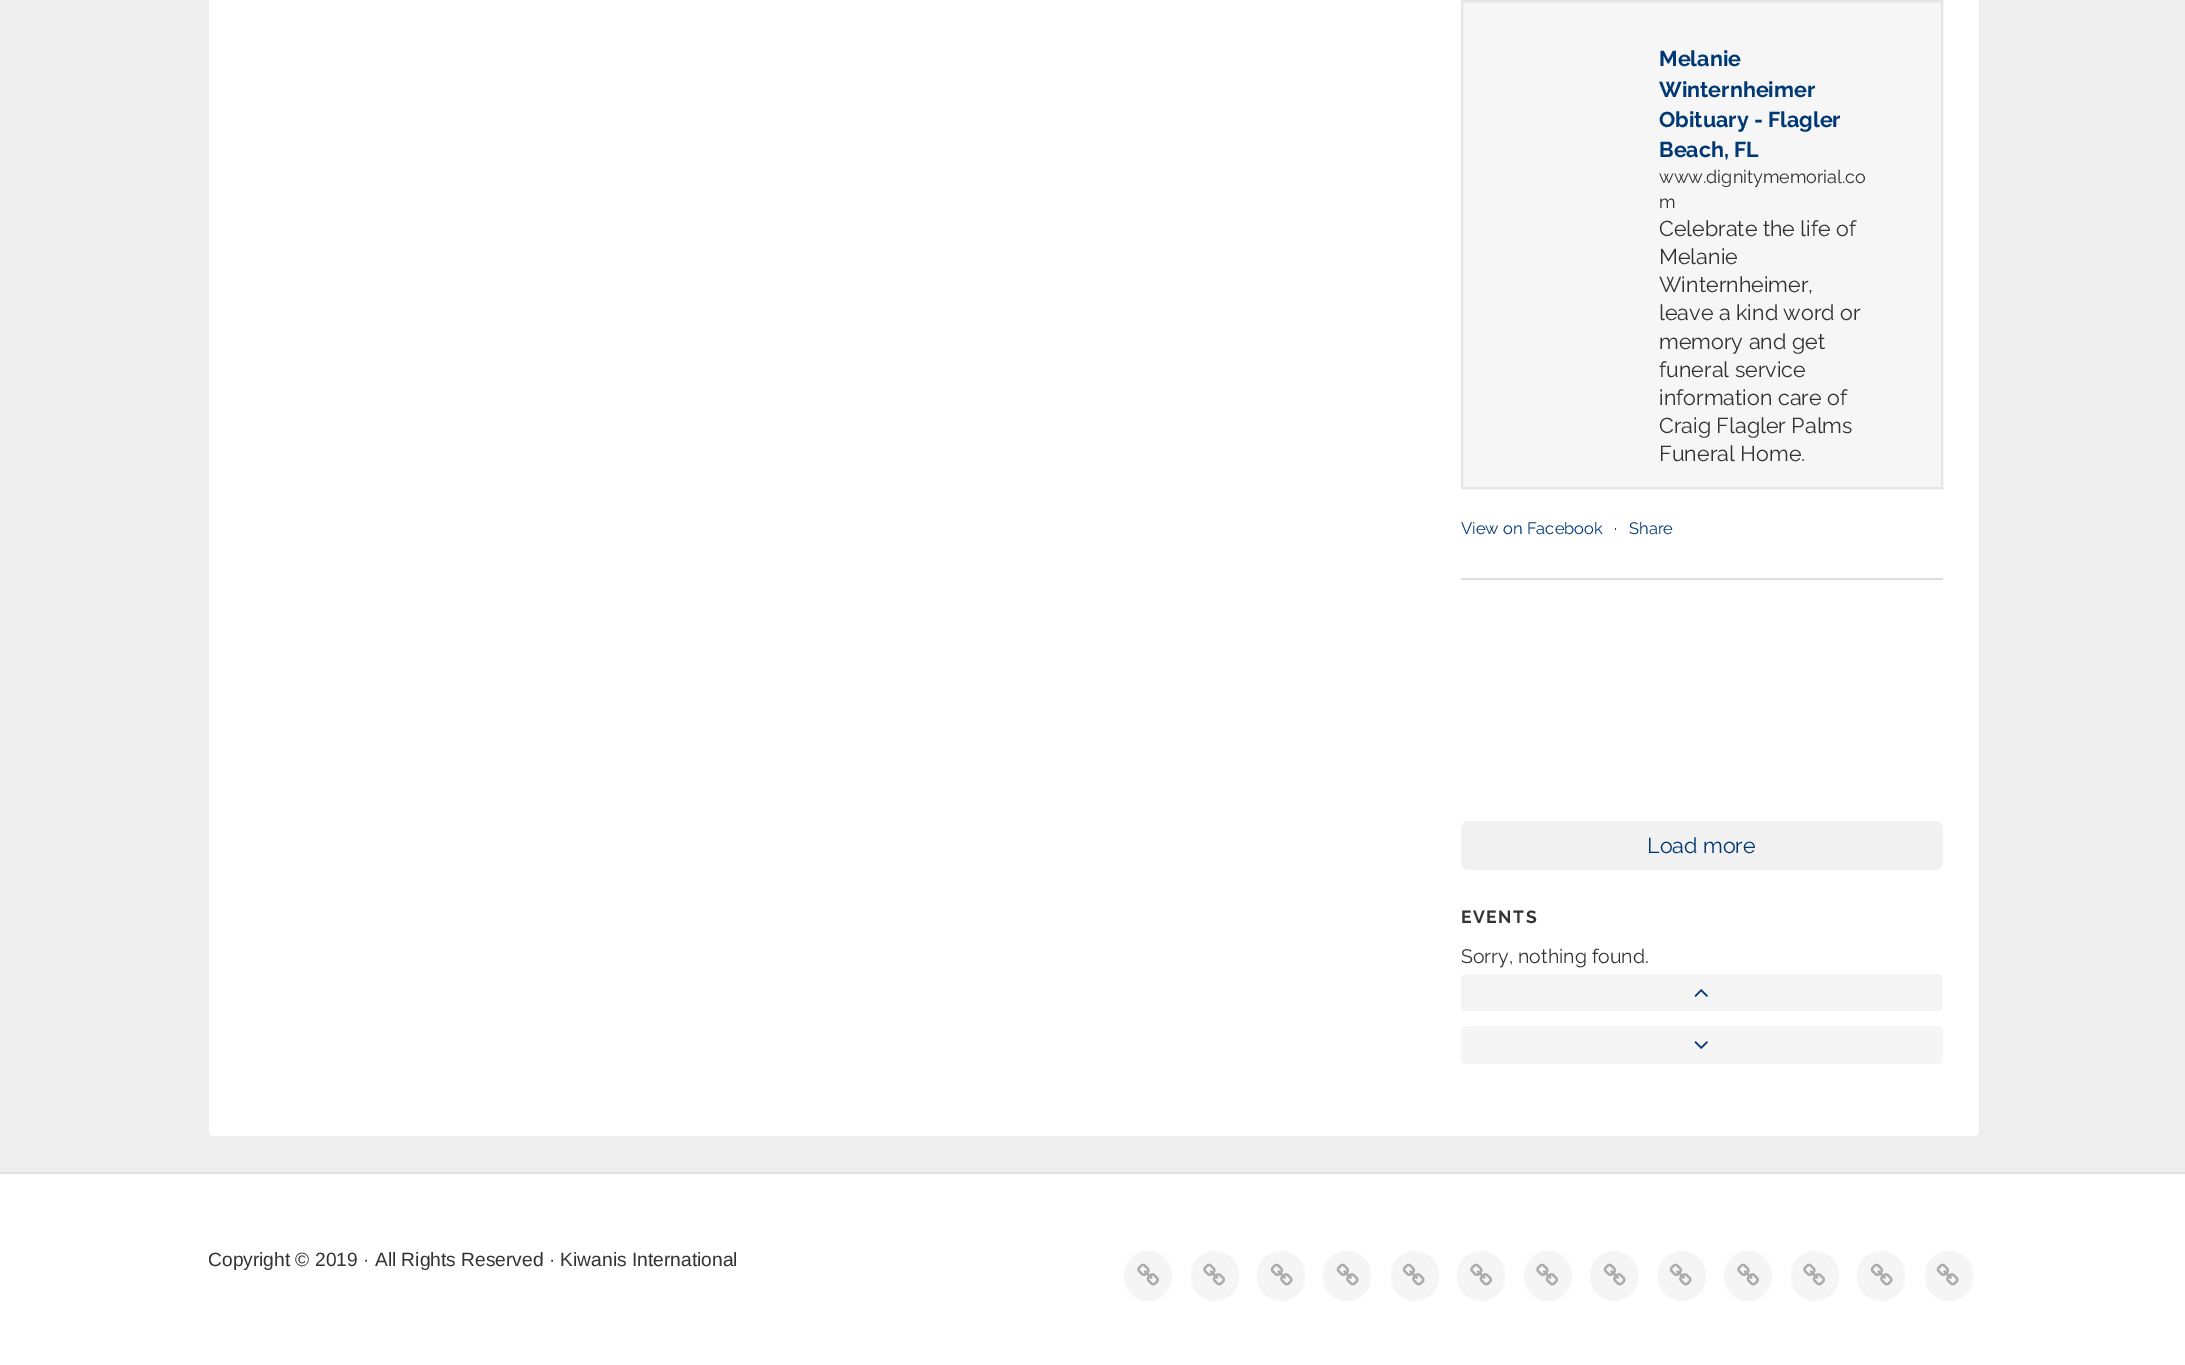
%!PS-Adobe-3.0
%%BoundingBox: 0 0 2185 1365
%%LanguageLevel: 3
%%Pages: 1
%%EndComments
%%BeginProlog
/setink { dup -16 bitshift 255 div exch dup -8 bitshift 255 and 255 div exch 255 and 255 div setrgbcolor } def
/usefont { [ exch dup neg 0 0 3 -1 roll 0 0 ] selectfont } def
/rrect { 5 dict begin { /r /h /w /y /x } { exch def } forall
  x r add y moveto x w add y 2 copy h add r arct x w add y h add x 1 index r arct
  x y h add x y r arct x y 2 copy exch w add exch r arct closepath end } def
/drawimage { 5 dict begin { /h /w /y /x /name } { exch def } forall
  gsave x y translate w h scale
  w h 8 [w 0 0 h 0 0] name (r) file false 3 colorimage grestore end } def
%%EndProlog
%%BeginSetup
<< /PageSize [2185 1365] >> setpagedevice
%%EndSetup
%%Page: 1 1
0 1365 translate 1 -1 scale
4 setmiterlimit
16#EEEEEE setink
0 0 2185 1365 rectfill
16#FFFFFF setink
209 -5 1770 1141 5 rrect fill
16#DDDDDD setink
1461 578 482 2 rectfill
16#F6F6F6 setink
1462 1 moveto 1942 1 lineto 1942 488 lineto 1462 488 lineto closepath gsave fill grestore
16#E5E5E5 setink
2 setlinewidth
stroke
/Raleway-Bold 21.5 usefont
16#003874 setink
[
    [(Melanie) 1659 66]
    [(Winternheimer) 1659 97]
    [(Obituary - Flagler) 1659 127]
    [(Beach, FL) 1659 157]
] { aload pop moveto show } forall
/Raleway-Regular 18 usefont
16#333333 setink
1659 183 moveto (www.dignitymemorial.co) show
1659 208 moveto (m) show
/Raleway-Regular 21.5 usefont
[
    [(Celebrate the life of) 1659 236]
    [(Melanie) 1659 264]
    [(Winternheimer,) 1659 292]
    [(leave a kind word or) 1659 320]
    [(memory and get) 1659 349]
    [(funeral service) 1659 377]
    [(information care of) 1659 405]
    [(Craig Flagler Palms) 1659 433]
    [(Funeral Home.) 1659 461]
] { aload pop moveto show } forall
/Raleway-Regular 16.5 usefont
16#003874 setink
1461 534 moveto (View on Facebook) show
16#333333 setink
1614 534 moveto (·) show
16#003874 setink
1629 534 moveto (Share) show
16#F1F1F1 setink
1461 821 482 49 8 rrect fill
/Raleway-Regular 21.5 usefont
16#003874 setink
1647 853 moveto (Load more) show
/Raleway-Bold 17.5 usefont
16#333333 setink
1461 923 moveto 1.5 0 (EVENTS) ashow
/Raleway-Regular 19.5 usefont
1461 963 moveto (Sorry, nothing found.) show
16#F4F4F4 setink
1461 974 482 37 5 rrect fill
(img1.raw) 1694 989 14 8 drawimage
16#F5F5F5 setink
1461 1026 482 38 5 rrect fill
(img2.raw) 1694 1041 14 8 drawimage
16#FFFFFF setink
0 1174 2185 191 rectfill
16#E0E0E0 setink
0 1172 2185 2 rectfill
gsave
209 1173 1770 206 rectclip
/LiberationSans-Regular 19.2 usefont
16#333333 setink
208 1266 moveto (Copyright © 2019 · All Rights Reserved · Kiwanis International) show
grestore
16#F5F5F5 setink
1124 1251 48 50 24 rrect fill
(img3.raw) 1137 1263 22 23 drawimage
1191 1251 48 50 24 rrect fill
(img3.raw) 1203 1263 22 23 drawimage
1257 1251 48 50 24 rrect fill
(img4.raw) 1270 1263 23 23 drawimage
1323 1251 48 50 24 rrect fill
(img4.raw) 1336 1263 23 23 drawimage
1391 1251 48 50 24 rrect fill
(img4.raw) 1402 1263 23 23 drawimage
1457 1251 48 50 24 rrect fill
(img3.raw) 1470 1263 22 23 drawimage
1524 1251 48 50 24 rrect fill
(img3.raw) 1536 1263 22 23 drawimage
1590 1251 48 50 24 rrect fill
(img4.raw) 1603 1263 23 23 drawimage
1658 1251 48 50 24 rrect fill
(img4.raw) 1669 1263 23 23 drawimage
1724 1251 48 50 24 rrect fill
(img3.raw) 1737 1263 22 23 drawimage
1791 1251 48 50 24 rrect fill
(img3.raw) 1803 1263 22 23 drawimage
1857 1251 48 50 24 rrect fill
(img4.raw) 1870 1263 23 23 drawimage
1925 1251 48 50 24 rrect fill
(img4.raw) 1936 1263 23 23 drawimage
showpage
%%EOF
